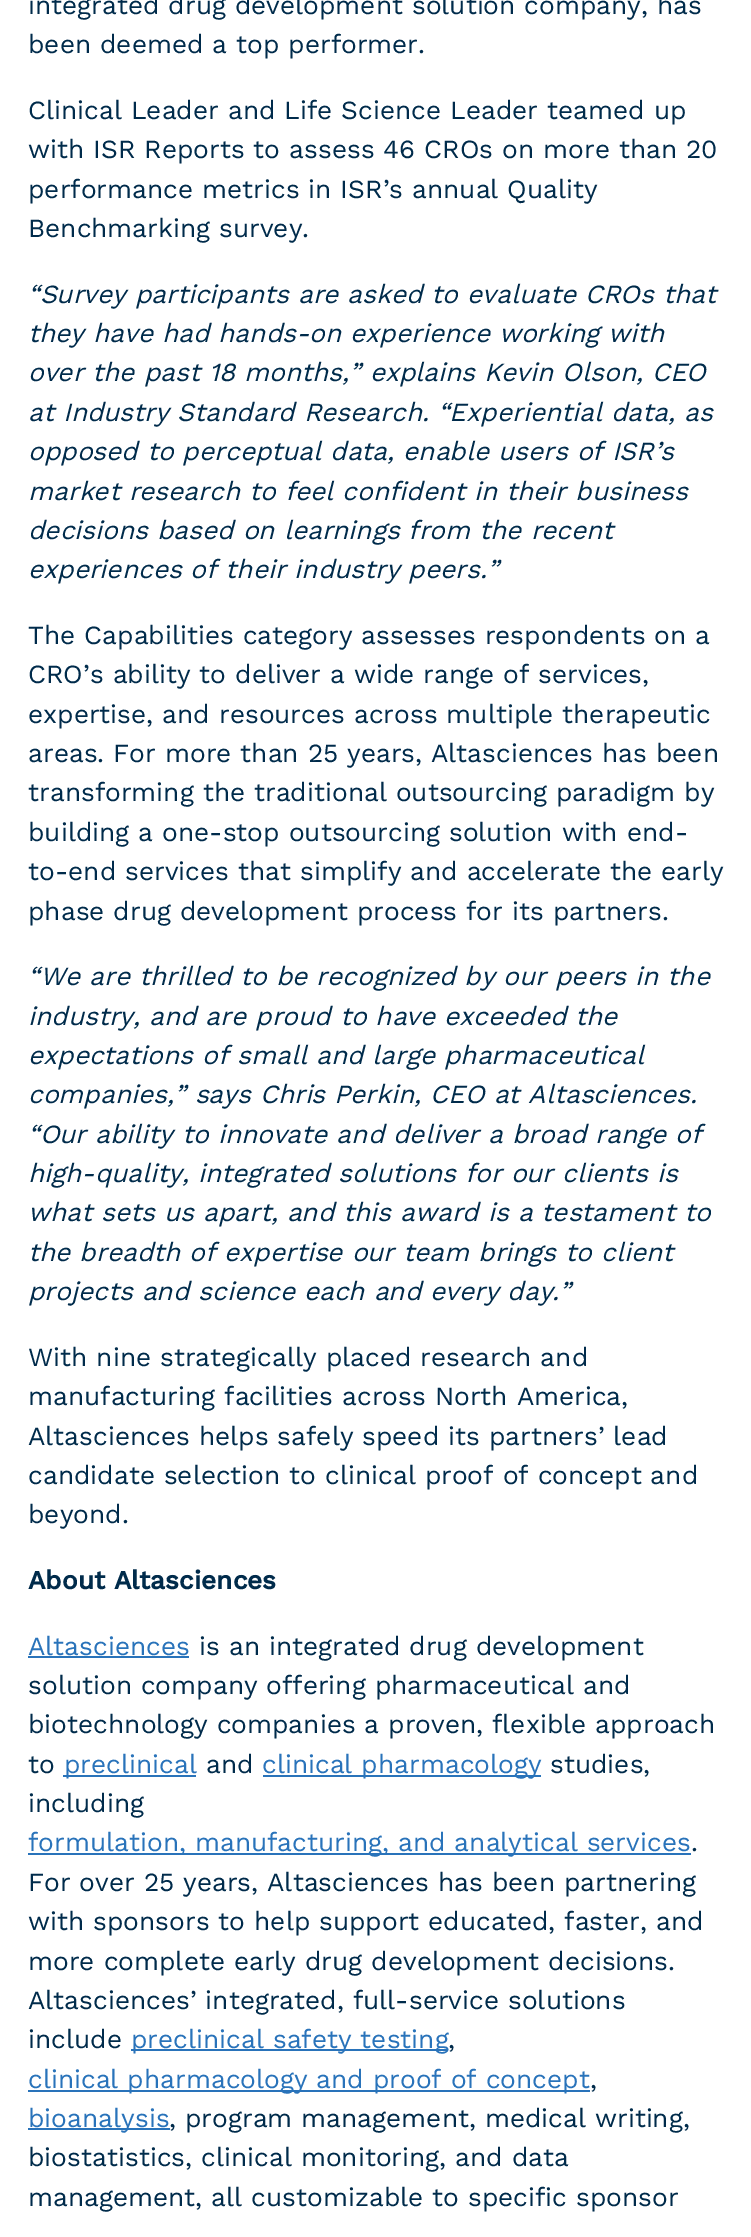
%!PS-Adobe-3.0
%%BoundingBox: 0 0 751 2237
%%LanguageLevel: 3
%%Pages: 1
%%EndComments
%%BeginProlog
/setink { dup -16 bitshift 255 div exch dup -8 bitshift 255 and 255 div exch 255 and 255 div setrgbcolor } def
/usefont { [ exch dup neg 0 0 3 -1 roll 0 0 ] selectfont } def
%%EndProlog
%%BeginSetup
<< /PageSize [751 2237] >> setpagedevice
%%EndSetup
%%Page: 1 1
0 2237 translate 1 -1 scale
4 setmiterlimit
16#FFFFFF setink
0 0 751 2237 rectfill
/WorkSans-Regular 26.25 usefont
16#002B4B setink
[
    [(integrated drug development solution company, has) 28 14]
    [(been deemed a top performer.) 28 53]
    [(Clinical Leader and Life Science Leader teamed up) 28 119]
    [(with ISR Reports to assess 46 CROs on more than 20) 28 158]
    [(performance metrics in ISR’s annual Quality) 28 198]
    [(Benchmarking survey.) 28 237]
] { aload pop moveto show } forall
/WorkSans-Italic 26.25 usefont
[
    [(“Survey participants are asked to evaluate CROs that) 28 303]
    [(they have had hands-on experience working with) 28 342]
    [(over the past 18 months,” explains Kevin Olson, CEO) 28 381]
    [(at Industry Standard Research. “Experiential data, as) 28 421]
    [(opposed to perceptual data, enable users of ISR’s) 28 460]
    [(market research to feel confident in their business) 28 500]
    [(decisions based on learnings from the recent) 28 539]
    [(experiences of their industry peers.”) 28 578]
] { aload pop moveto show } forall
/WorkSans-Regular 26.25 usefont
[
    [(The Capabilities category assesses respondents on a) 28 644]
    [(CRO’s ability to deliver a wide range of services,) 28 683]
    [(expertise, and resources across multiple therapeutic) 28 723]
    [(areas. For more than 25 years, Altasciences has been) 28 762]
    [(transforming the traditional outsourcing paradigm by) 28 801]
    [(building a one-stop outsourcing solution with end-) 28 841]
    [(to-end services that simplify and accelerate the early) 28 880]
    [(phase drug development process for its partners.) 28 920]
] { aload pop moveto show } forall
/WorkSans-Italic 26.25 usefont
[
    [(“We are thrilled to be recognized by our peers in the) 28 985]
    [(industry, and are proud to have exceeded the) 28 1025]
    [(expectations of small and large pharmaceutical) 28 1064]
    [(companies,” says Chris Perkin, CEO at Altasciences.) 28 1103]
    [(“Our ability to innovate and deliver a broad range of) 28 1143]
    [(high-quality, integrated solutions for our clients is) 28 1182]
    [(what sets us apart, and this award is a testament to) 28 1221]
    [(the breadth of expertise our team brings to client) 28 1261]
    [(projects and science each and every day.”) 28 1300]
] { aload pop moveto show } forall
/WorkSans-Regular 26.25 usefont
[
    [(With nine strategically placed research and) 28 1366]
    [(manufacturing facilities across North America,) 28 1405]
    [(Altasciences helps safely speed its partners’ lead) 28 1445]
    [(candidate selection to clinical proof of concept and) 28 1484]
    [(beyond.) 28 1523]
] { aload pop moveto show } forall
/WorkSans-Bold 26.25 usefont
28 1589 moveto (About Altasciences) show
/WorkSans-Regular 26.25 usefont
16#2973BA setink
28 1655 moveto (Altasciences) show
28 1656 161 2 rectfill
16#002B4B setink
[
    [(is an integrated drug development) 199 1655]
    [(solution company offering pharmaceutical and) 28 1694]
    [(biotechnology companies a proven, flexible approach) 28 1733]
    [(to) 28 1773]
] { aload pop moveto show } forall
16#2973BA setink
63 1775 133 2 rectfill
64 1773 moveto (preclinical) show
16#002B4B setink
206 1773 moveto (and) show
16#2973BA setink
263 1775 278 2 rectfill
262 1773 moveto (clinical pharmacology) show
16#002B4B setink
550 1773 moveto (studies,) show
28 1812 moveto (including) show
16#2973BA setink
28 1853 663 2 rectfill
28 1851 moveto (formulation, manufacturing, and analytical services) show
16#002B4B setink
[
    [(.) 691 1851]
    [(For over 25 years, Altasciences has been partnering) 28 1891]
    [(with sponsors to help support educated, faster, and) 28 1930]
    [(more complete early drug development decisions.) 28 1970]
    [(Altasciences’ integrated, full-service solutions) 28 2009]
    [(include) 28 2048]
] { aload pop moveto show } forall
16#2973BA setink
131 2049 317 2 rectfill
131 2048 moveto (preclinical safety testing) show
16#002B4B setink
448 2048 moveto (,) show
16#2973BA setink
28 2090 562 2 rectfill
28 2088 moveto (clinical pharmacology and proof of concept) show
16#002B4B setink
590 2088 moveto (,) show
16#2973BA setink
28 2128 142 2 rectfill
28 2127 moveto (bioanalysis) show
16#002B4B setink
[
    [(, program management, medical writing,) 169 2127]
    [(biostatistics, clinical monitoring, and data) 28 2166]
    [(management, all customizable to specific sponsor) 28 2206]
] { aload pop moveto show } forall
showpage
%%EOF
